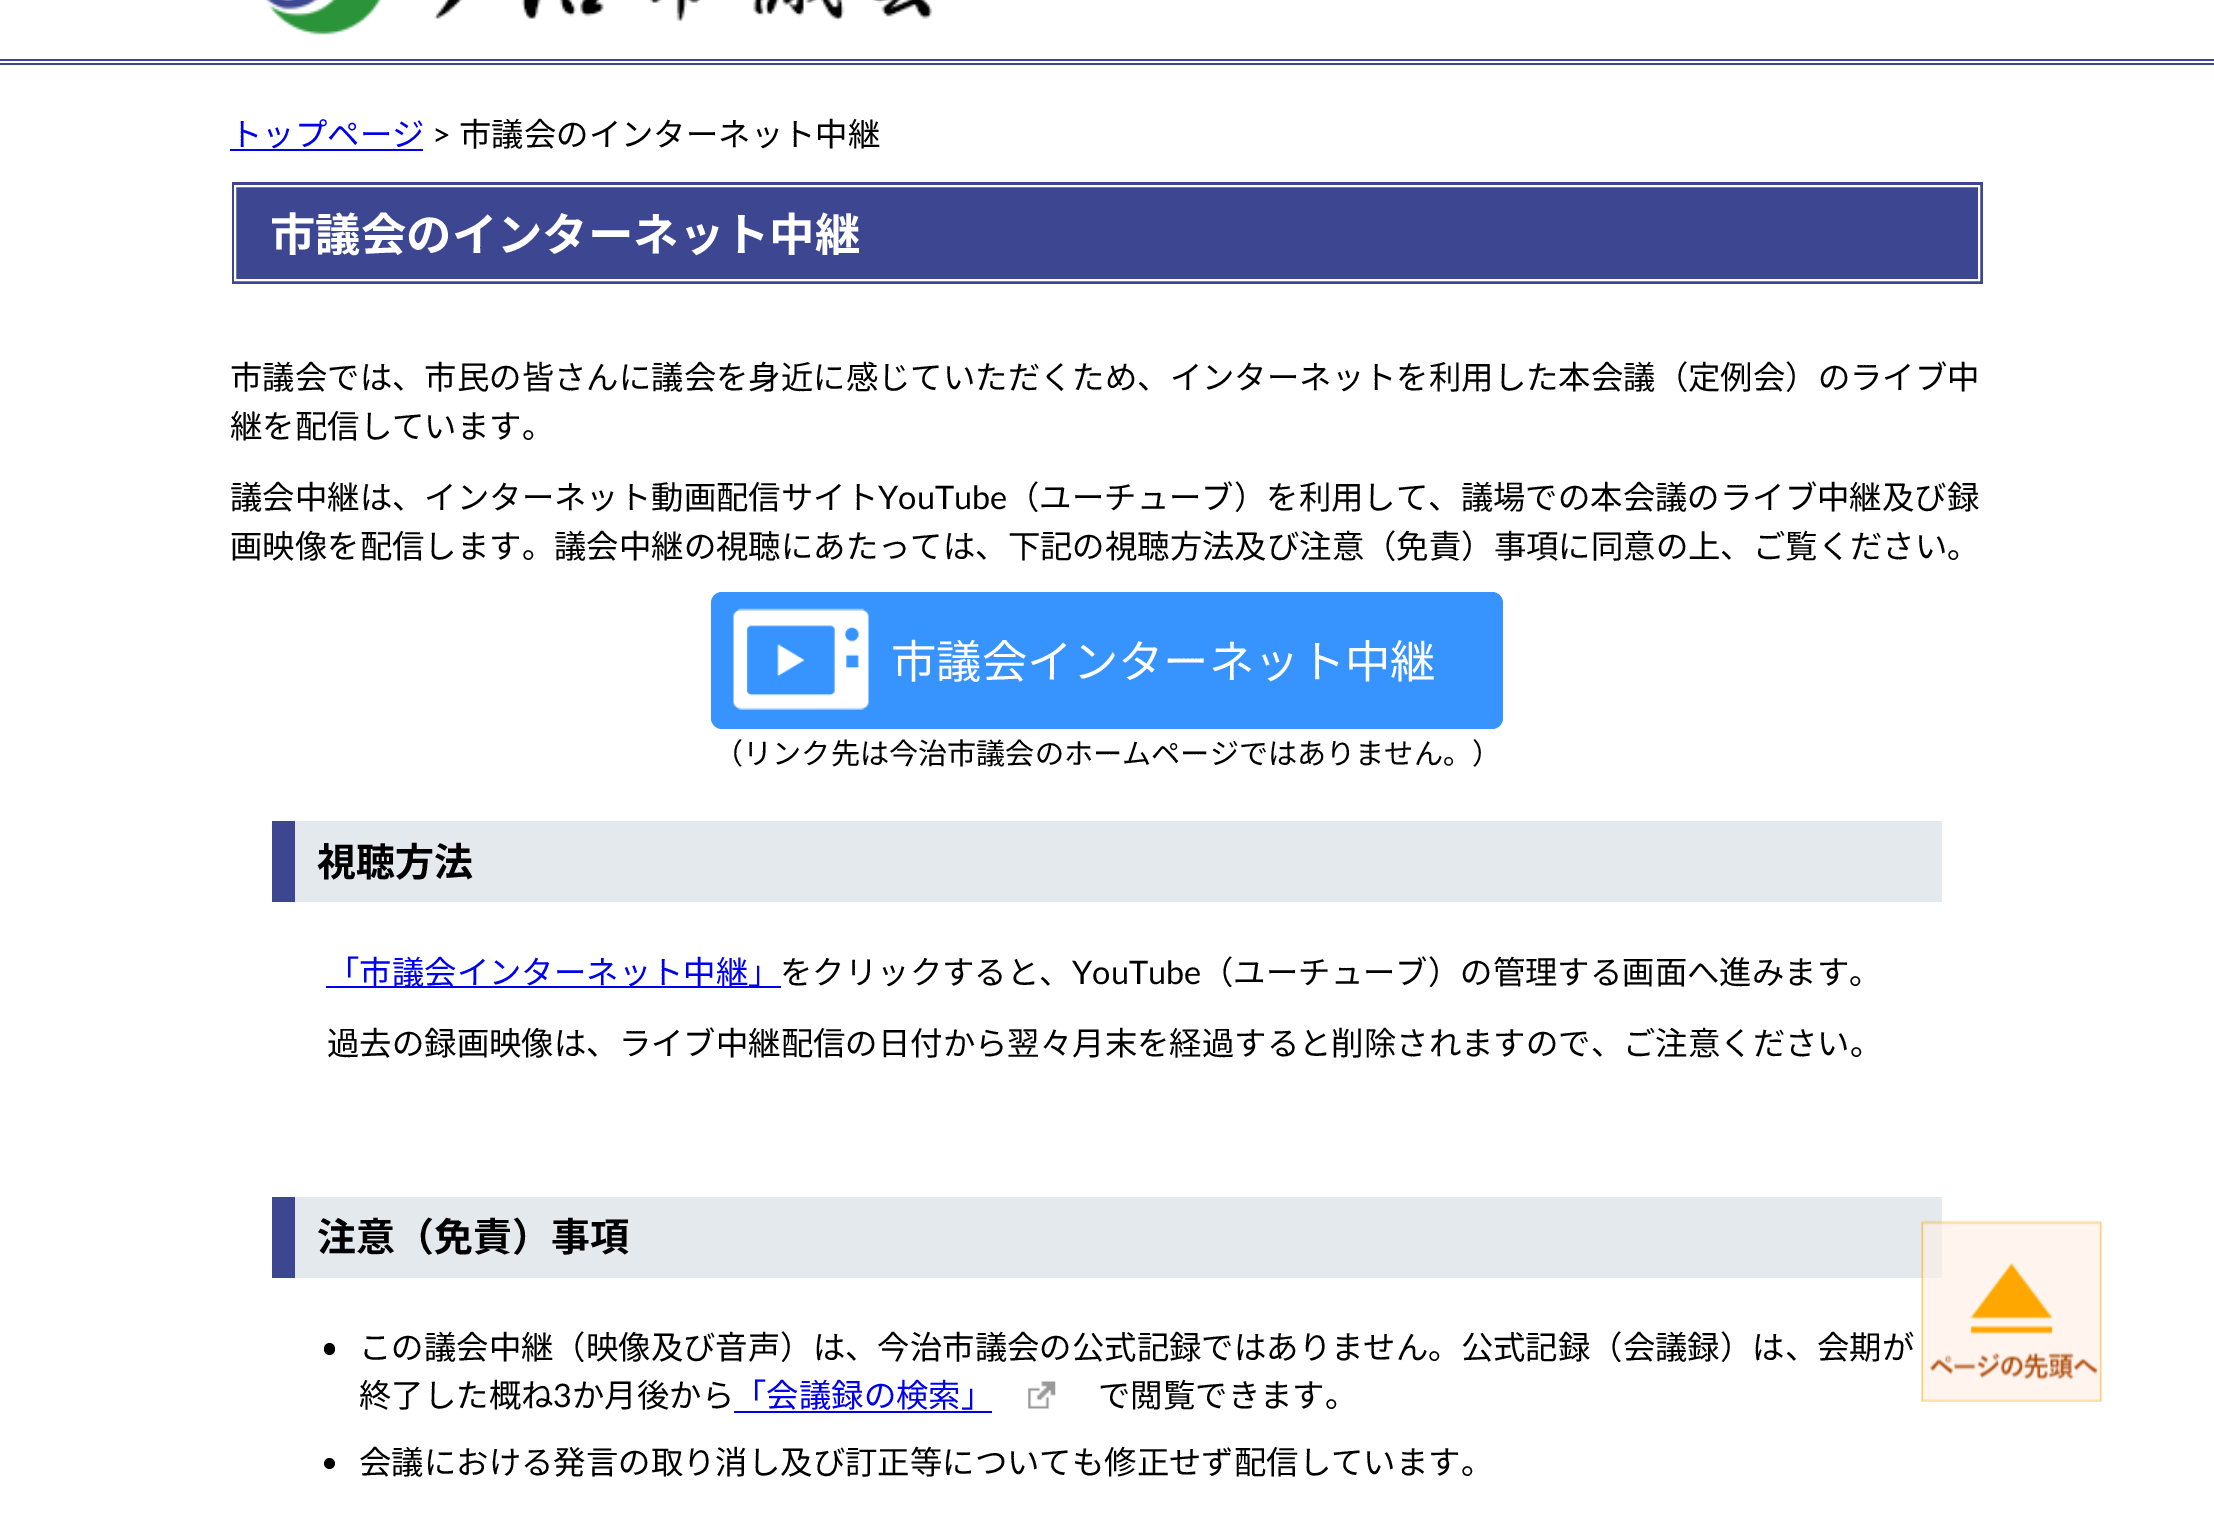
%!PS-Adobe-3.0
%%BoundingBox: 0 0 2214 1518
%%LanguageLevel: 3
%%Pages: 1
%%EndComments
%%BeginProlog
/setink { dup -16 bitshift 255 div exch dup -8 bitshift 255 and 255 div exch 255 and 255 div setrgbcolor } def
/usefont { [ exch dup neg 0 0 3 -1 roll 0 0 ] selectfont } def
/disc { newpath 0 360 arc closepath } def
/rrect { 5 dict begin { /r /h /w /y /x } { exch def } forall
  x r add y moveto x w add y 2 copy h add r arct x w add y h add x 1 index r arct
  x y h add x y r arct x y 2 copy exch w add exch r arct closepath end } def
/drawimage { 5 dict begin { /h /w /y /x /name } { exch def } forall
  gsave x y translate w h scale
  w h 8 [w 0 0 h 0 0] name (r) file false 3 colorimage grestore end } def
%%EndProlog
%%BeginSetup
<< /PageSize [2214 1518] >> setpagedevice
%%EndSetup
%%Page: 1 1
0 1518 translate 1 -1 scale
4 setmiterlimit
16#FFFFFF setink
0 0 2214 1518 rectfill
16#3D4791 setink
0 59 2214 2 rectfill
0 63 2214 2 rectfill
(img1.raw) 265 0 668 35 drawimage
/NotoSansJP-Regular 32.4 usefont
16#0000EE setink
230 146 moveto (トップページ) show
230 149 193 2 rectfill
/Lato-Regular 32.4 usefont
16#000000 setink
432 146 moveto (>) show
/NotoSansJP-Regular 32.4 usefont
459 146 moveto (市議会のインターネット中継) show
16#3D4791 setink
232 182 1751 102 rectfill
16#FFFFFF setink
2 setlinewidth
235 186 1744 94 rectstroke
/NotoSansJP-Bold 45.4 usefont
270 251 moveto (市議会のインターネット中継) show
/NotoSansJP-Regular 32.4 usefont
16#000000 setink
[
    [(市議会では、市民の皆さんに議会を身近に感じていただくため、インターネットを利用した本会議（定例会）のライブ中) 230 389]
    [(継を配信しています。) 230 438]
    [(議会中継は、インターネット動画配信サイト) 230 509]
] { aload pop moveto show } forall
/Lato-Regular 32.4 usefont
878 509 moveto (YouTube) show
/NotoSansJP-Regular 32.4 usefont
1007 509 moveto (（ユーチューブ）を利用して、議場での本会議のライブ中継及び録) show
230 558 moveto (画映像を配信します。議会中継の視聴にあたっては、下記の視聴方法及び注意（免責）事項に同意の上、ご覧ください。) show
16#3794FF setink
711 592 792 137 11 rrect fill
(img2.raw) 733 608 136 102 drawimage
/NotoSansJP-Regular 45.4 usefont
16#FFFFFF setink
891 678 moveto (市議会インターネット中継) show
/NotoSansJP-Regular 29.15 usefont
16#000000 setink
714 764 moveto (（リンク先は今治市議会のホームページではありません。）) show
16#E4E9ED setink
295 821 1647 81 rectfill
16#3D4791 setink
272 821 23 81 rectfill
/NotoSansJP-Bold 39 usefont
16#000000 setink
317 876 moveto (視聴方法) show
16#0000EE setink
326 986 455 2 rectfill
/NotoSansJP-Regular 32.4 usefont
327 984 moveto (「市議会インターネット中継」) show
16#000000 setink
780 984 moveto (をクリックすると、) show
/Lato-Regular 32.4 usefont
1072 984 moveto (YouTube) show
/NotoSansJP-Regular 32.4 usefont
1201 984 moveto (（ユーチューブ）の管理する画面へ進みます。) show
327 1055 moveto (過去の録画映像は、ライブ中継配信の日付から翌々月末を経過すると削除されますので、ご注意ください。) show
16#E4E9ED setink
295 1197 1647 81 rectfill
16#3D4791 setink
272 1197 23 81 rectfill
/NotoSansJP-Bold 39 usefont
16#000000 setink
317 1251 moveto (注意（免責）事項) show
324 1343 11 12 5.5 rrect fill
/NotoSansJP-Regular 32.4 usefont
359 1359 moveto (この議会中継（映像及び音声）は、今治市議会の公式記録ではありません。公式記録（会議録）は、会期が) show
359 1407 moveto (終了した概ね) show
/Lato-Regular 32.4 usefont
553 1407 moveto (3) show
/NotoSansJP-Regular 32.4 usefont
572 1407 moveto (か月後から) show
(img3.raw) 1028 1381 28 28 drawimage
16#0000EE setink
734 1407 moveto (「会議録の検索」) show
734 1411 258 2 rectfill
16#000000 setink
1098 1407 moveto (で閲覧できます。) show
329.5 1463.5 5.5 disc fill
359 1474 moveto (会議における発言の取り消し及び訂正等についても修正せず配信しています。) show
(img4.raw) 1921 1220 181 182 drawimage
showpage
%%EOF
